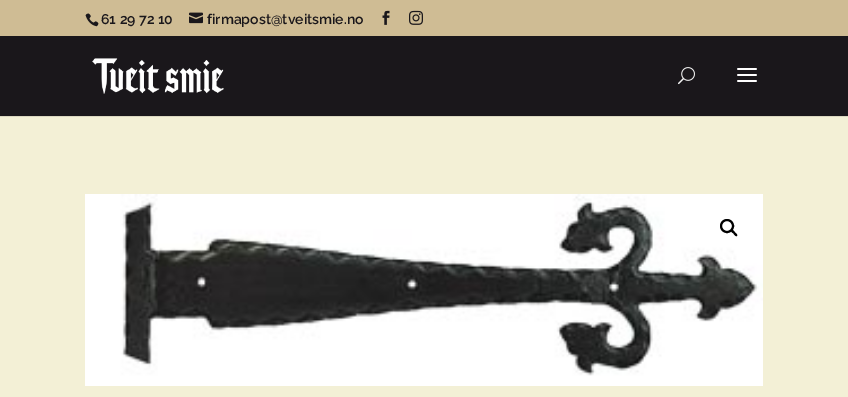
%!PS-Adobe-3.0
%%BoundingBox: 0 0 848 397
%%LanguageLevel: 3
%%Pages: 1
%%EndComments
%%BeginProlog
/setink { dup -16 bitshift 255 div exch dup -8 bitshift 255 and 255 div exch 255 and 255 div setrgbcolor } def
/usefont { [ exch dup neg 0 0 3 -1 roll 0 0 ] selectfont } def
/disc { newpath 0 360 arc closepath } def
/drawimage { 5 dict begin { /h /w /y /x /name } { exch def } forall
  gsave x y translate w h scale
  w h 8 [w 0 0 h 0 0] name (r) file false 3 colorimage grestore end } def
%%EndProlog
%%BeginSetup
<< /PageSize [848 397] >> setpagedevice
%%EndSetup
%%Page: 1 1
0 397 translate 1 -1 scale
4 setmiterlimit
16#F3F0D6 setink
0 0 848 397 rectfill
16#CFBC94 setink
0 0 848 36 rectfill
(img1.raw) 85 13 14 14 drawimage
/Raleway-Thin 14 usefont
16#1A171B setink
101 24 moveto (61 29 72 10) show
(img2.raw) 189 12 14 12 drawimage
207 24 moveto (firmapost@tveitsmie.no) show
(img3.raw) 382 10 8 15 drawimage
(img4.raw) 409 10 14 15 drawimage
16#DBD8C1 setink
0 116 848 1 rectfill
16#1A171B setink
0 36 848 80 rectfill
(img5.raw) 92 58 132 36 drawimage
(img6.raw) 678 67 17 18 drawimage
(img7.raw) 737 68 20 14 drawimage
(img8.raw) 85 194 678 192 drawimage
16#000000 setink
2 setlinewidth
727 226 6 disc stroke
731.5 230 moveto 732.5 229 734.5 231.5 735 232.5 curveto 735.5 233 738 234.5 737 236 curveto 736 237 734 234.5 733.5 233.5 curveto 733 233 730 231.5 731.5 230 curveto closepath fill
showpage
%%EOF
